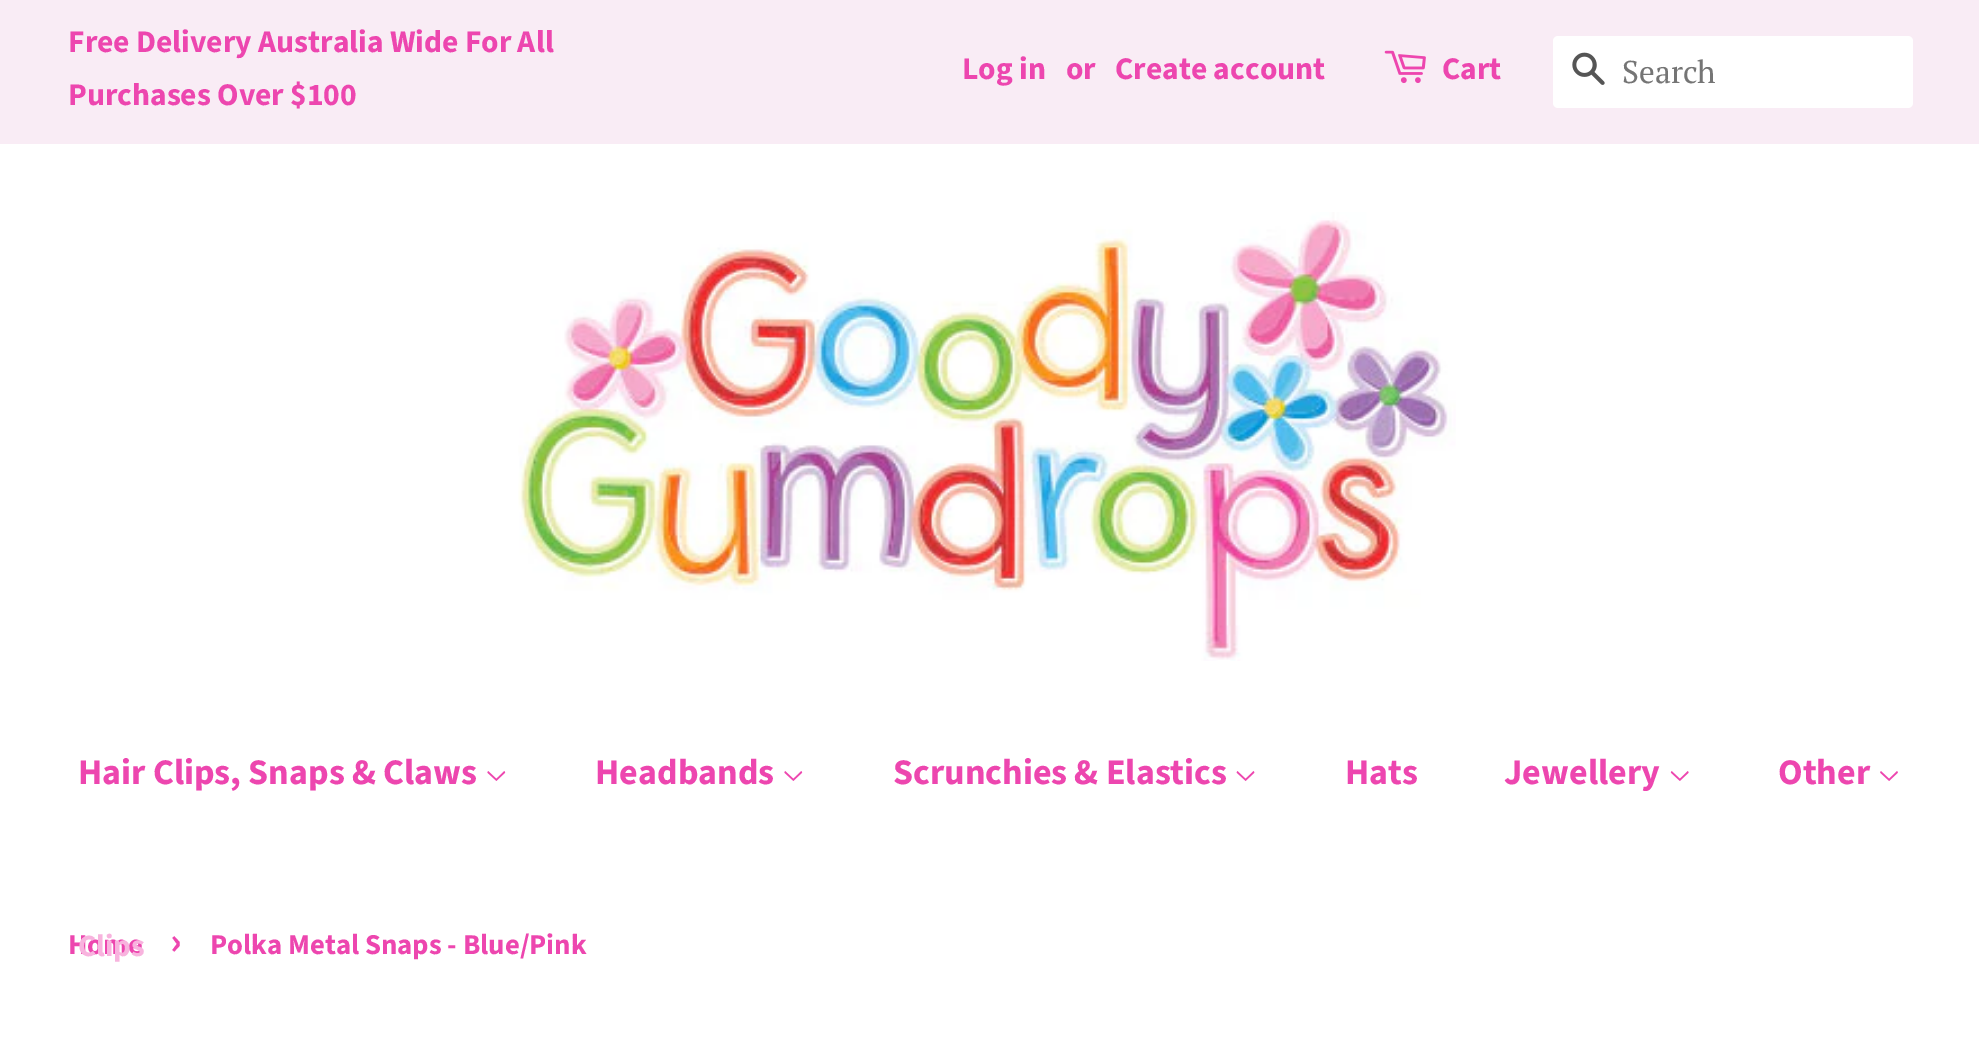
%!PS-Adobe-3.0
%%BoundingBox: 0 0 1979 1052
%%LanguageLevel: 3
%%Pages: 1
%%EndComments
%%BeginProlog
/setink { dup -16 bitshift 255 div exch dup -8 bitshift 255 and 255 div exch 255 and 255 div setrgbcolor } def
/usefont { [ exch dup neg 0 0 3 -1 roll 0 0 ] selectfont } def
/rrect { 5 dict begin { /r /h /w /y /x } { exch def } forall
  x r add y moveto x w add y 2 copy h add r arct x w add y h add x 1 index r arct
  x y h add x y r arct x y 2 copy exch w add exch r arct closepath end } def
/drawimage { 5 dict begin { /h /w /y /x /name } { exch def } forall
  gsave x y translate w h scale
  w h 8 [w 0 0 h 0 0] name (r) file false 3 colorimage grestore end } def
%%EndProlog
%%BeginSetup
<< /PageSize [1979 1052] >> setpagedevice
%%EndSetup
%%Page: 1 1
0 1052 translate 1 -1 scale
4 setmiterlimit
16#FFFFFF setink
0 0 1979 1052 rectfill
16#F9ECF5 setink
0 0 1979 144 rectfill
/SourceSansPro-Bold 31.5 usefont
16#ED46AF setink
[
    [(Free Delivery Australia Wide For All) 68 52]
    [(Purchases Over $100) 68 105]
    [(Log in) 962 79]
    [(or) 1066 79]
    [(Create account) 1115 79]
] { aload pop moveto show } forall
(img1.raw) 1384 50 42 34 drawimage
1442 79 moveto (Cart) show
16#FFFFFF setink
1553 36 360 72 5 rrect fill
(img2.raw) 1572 52 33 33 drawimage
/PTSerif-Regular 31.5 usefont
16#757575 setink
1622 83 moveto (Search) show
(img3.raw) 518 212 938 449 drawimage
/SourceSansPro-Bold 36 usefont
16#ED46AF setink
78 784 moveto (Hair Clips, Snaps & Claws) show
(img4.raw) 487 771 19 10 drawimage
/SourceSansPro-Bold 28.75 usefont
68 954 moveto (Home) show
/SourceSansPro-Bold 31 usefont
16#F8B3DE setink
78 956 moveto (Clips) show
/SourceSansPro-Bold 36 usefont
16#ED46AF setink
595 784 moveto (Headbands) show
(img4.raw) 784 771 19 10 drawimage
893 784 moveto (Scrunchies & Elastics) show
(img5.raw) 1236 771 19 10 drawimage
1345 784 moveto (Hats) show
1504 784 moveto (Jewellery) show
(img6.raw) 1670 771 19 10 drawimage
1778 784 moveto (Other) show
(img7.raw) 1880 771 18 10 drawimage
/SourceSansPro-Bold 40 usefont
170 954 moveto (›) show
/SourceSansPro-Bold 28.75 usefont
210 954 moveto (Polka Metal Snaps - Blue/Pink) show
showpage
%%EOF
